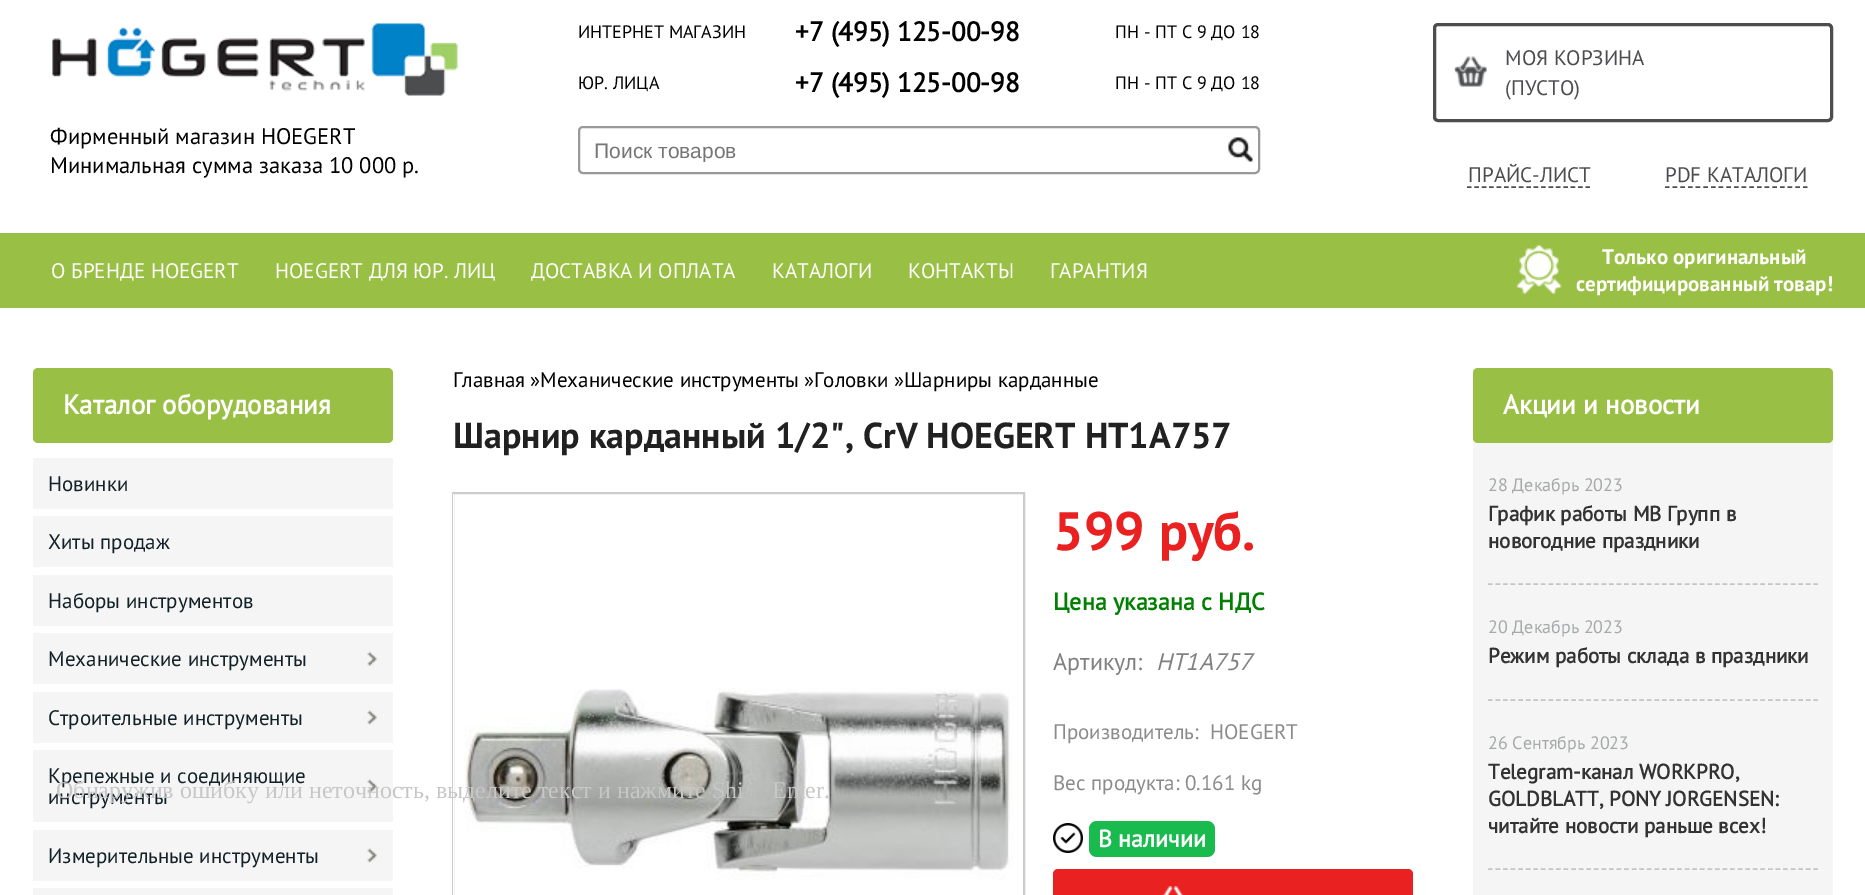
%!PS-Adobe-3.0
%%BoundingBox: 0 0 1865 895
%%LanguageLevel: 3
%%Pages: 1
%%EndComments
%%BeginProlog
/setink { dup -16 bitshift 255 div exch dup -8 bitshift 255 and 255 div exch 255 and 255 div setrgbcolor } def
/usefont { [ exch dup neg 0 0 3 -1 roll 0 0 ] selectfont } def
/rrect { 5 dict begin { /r /h /w /y /x } { exch def } forall
  x r add y moveto x w add y 2 copy h add r arct x w add y h add x 1 index r arct
  x y h add x y r arct x y 2 copy exch w add exch r arct closepath end } def
/drawimage { 5 dict begin { /h /w /y /x /name } { exch def } forall
  gsave x y translate w h scale
  w h 8 [w 0 0 h 0 0] name (r) file false 3 colorimage grestore end } def
%%EndProlog
%%BeginSetup
<< /PageSize [1865 895] >> setpagedevice
%%EndSetup
%%Page: 1 1
0 895 translate 1 -1 scale
4 setmiterlimit
16#FFFFFF setink
0 0 1865 895 rectfill
(img1.raw) 52 23 406 73 drawimage
/PTSans-Regular 22.5 usefont
16#000000 setink
50 144 moveto (Фирменный магазин HOEGERT) show
50 173 moveto (Минимальная сумма заказа 10 000 р.) show
/PTSans-Regular 18 usefont
578 38 moveto (ИНТЕРНЕТ МАГАЗИН) show
/PTSans-Bold 27 usefont
795 41 moveto (+7 \(495\) 125-00-98) show
/PTSans-Regular 18 usefont
1115 38 moveto (ПН - ПТ С 9 ДО 18) show
578 89 moveto (ЮР. ЛИЦА) show
/PTSans-Bold 27 usefont
795 92 moveto (+7 \(495\) 125-00-98) show
/PTSans-Regular 18 usefont
1115 89 moveto (ПН - ПТ С 9 ДО 18) show
16#999999 setink
2 setlinewidth
579 127 680 46 4 rrect stroke
gsave
594 138 650 24 rectclip
/LiberationSans-Regular 21 usefont
16#757575 setink
594 158 moveto (Поиск товаров) show
grestore
(img2.raw) 1228 137 25 25 drawimage
16#4C4D4F setink
3 setlinewidth
1434.5 24.5 397 96 3.5 rrect stroke
(img3.raw) 1454 56 33 31 drawimage
/PTSans-Regular 21 usefont
1505 65 moveto (МОЯ КОРЗИНА) show
1505 95 moveto (\(ПУСТО\)) show
1.5 setlinewidth
[4.5 2.91] 0 setdash
1467 187 moveto 1590 187 lineto stroke
1468 182 moveto (ПРАЙС-ЛИСТ) show
[4.5 3.17] 0 setdash
1665 187 moveto 1807.5 187 lineto stroke
1665 182 moveto (PDF КАТАЛОГИ) show
16#99C045 setink
0 233 1865 75 rectfill
16#FFFFFF setink
[
    [(О БРЕНДЕ HOEGERT) 51 278]
    [(HOEGERT ДЛЯ ЮР. ЛИЦ) 275 278]
    [(ДОСТАВКА И ОПЛАТА) 531 278]
    [(КАТАЛОГИ) 772 278]
    [(КОНТАКТЫ) 908 278]
    [(ГАРАНТИЯ) 1050 278]
] { aload pop moveto show } forall
(img4.raw) 1516 245 46 49 drawimage
/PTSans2-Bold 21 usefont
1602 264 moveto (Только оригинальный) show
1576 291 moveto (сертифицированный товар!) show
16#99C045 setink
33 368 360 75 5 rrect fill
/PTSans-Bold 27 usefont
16#FFFFFF setink
63 414 moveto (Каталог оборудования) show
16#F5F5F5 setink
33 458 360 51 rectfill
/PTSans-Regular 21 usefont
16#132229 setink
48 491 moveto (Новинки) show
16#F5F5F5 setink
33 516 360 51 rectfill
16#132229 setink
48 549 moveto (Хиты продаж) show
16#F5F5F5 setink
33 575 360 51 rectfill
16#132229 setink
48 608 moveto (Наборы инструментов) show
16#F5F5F5 setink
33 633 360 51 rectfill
16#132229 setink
48 666 moveto (Механические инструменты) show
(img5.raw) 367 651 10 15 drawimage
16#F5F5F5 setink
33 692 360 51 rectfill
16#132229 setink
48 725 moveto (Строительные инструменты) show
(img6.raw) 367 710 10 15 drawimage
16#F5F5F5 setink
33 750 360 72 rectfill
16#132229 setink
48 783 moveto (Крепежные и соединяющие) show
48 804 moveto (инструменты) show
(img6.raw) 367 779 10 15 drawimage
16#F5F5F5 setink
33 830 360 51 rectfill
16#132229 setink
48 863 moveto (Измерительные инструменты) show
(img6.raw) 367 848 10 15 drawimage
16#F5F5F5 setink
33 888 360 7 rectfill
16#000000 setink
[
    [(Главная) 453 387]
    [(»Механические инструменты) 530 387]
    [(»Головки) 804 387]
    [(»Шарниры карданные) 894 387]
] { aload pop moveto show } forall
/PTSans2-Bold 36 usefont
16#212121 setink
453 448 moveto (Шарнир карданный 1/2", CrV HOEGERT HT1A757) show
16#CCCCCC setink
2 setlinewidth
[] 0 setdash
453 493 571 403 rectstroke
16#FFFFFF setink
453 494 1 401 rectfill
(img7.raw) 463 688 551 192 drawimage
/PTSans2-Bold 54 usefont
16#E92121 setink
1053 550 moveto (599 руб.) show
/PTSans-Bold 24 usefont
16#008000 setink
1053 610 moveto (Цена указана с НДС) show
/PTSans-Regular 24 usefont
16#808080 setink
1053 670 moveto (Артикул:) show
/PTSans-Italic 24 usefont
1156 670 moveto (HT1A757) show
/PTSans-Regular 21 usefont
16#8B8B8B setink
[
    [(Производитель:) 1053 739]
    [(HOEGERT) 1210 739]
    [(Вес продукта: 0.161 kg) 1053 790]
] { aload pop moveto show } forall
(img8.raw) 1053 823 30 30 drawimage
16#19BB4F setink
1089 821 126 36 8 rrect fill
/PTSans-Bold 24 usefont
16#FFFFFF setink
1098 847 moveto (В наличии) show
16#E92121 setink
1053 869 360 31 5 rrect fill
(img9.raw) 1162 886 22 9 drawimage
16#F5F5F5 setink
1473 368 360 527 rectfill
16#99C045 setink
1473 368 360 75 5 rrect fill
/PTSans-Bold 27 usefont
16#FFFFFF setink
1503 414 moveto (Акции и новости) show
16#C4C4C4 setink
1.5 setlinewidth
[4.5 3.07] 0 setdash
1488 584 moveto 1818 584 lineto stroke
/PTSans-Regular 18 usefont
16#A6A9AA setink
1488 491 moveto (28 Декабрь 2023) show
/PTSans-Bold 21 usefont
16#333333 setink
1488 521 moveto (График работы МВ Групп в) show
1488 548 moveto (новогодние праздники) show
16#C4C4C4 setink
1488 700 moveto 1818 700 lineto stroke
/PTSans-Regular 18 usefont
16#A6A9AA setink
1488 633 moveto (20 Декабрь 2023) show
/PTSans-Bold 21 usefont
16#333333 setink
1488 663 moveto (Режим работы склада в праздники) show
16#C4C4C4 setink
1488 869 moveto 1818 869 lineto stroke
/PTSans-Regular 18 usefont
16#A6A9AA setink
1488 749 moveto (26 Сентябрь 2023) show
/PTSans-Bold 21 usefont
16#333333 setink
[
    [(Telegram-канал WORKPRO,) 1488 779]
    [(GOLDBLATT, PONY JORGENSEN:) 1488 806]
    [(читайте новости раньше всех!) 1488 833]
] { aload pop moveto show } forall
/LiberationSerif-Regular 24 usefont
16#C7C7C7 setink
56 798 moveto (Обнаружив ошибку или неточность, выделите текст и нажмите Shi) show
772 798 moveto (Enter.) show
showpage
%%EOF
